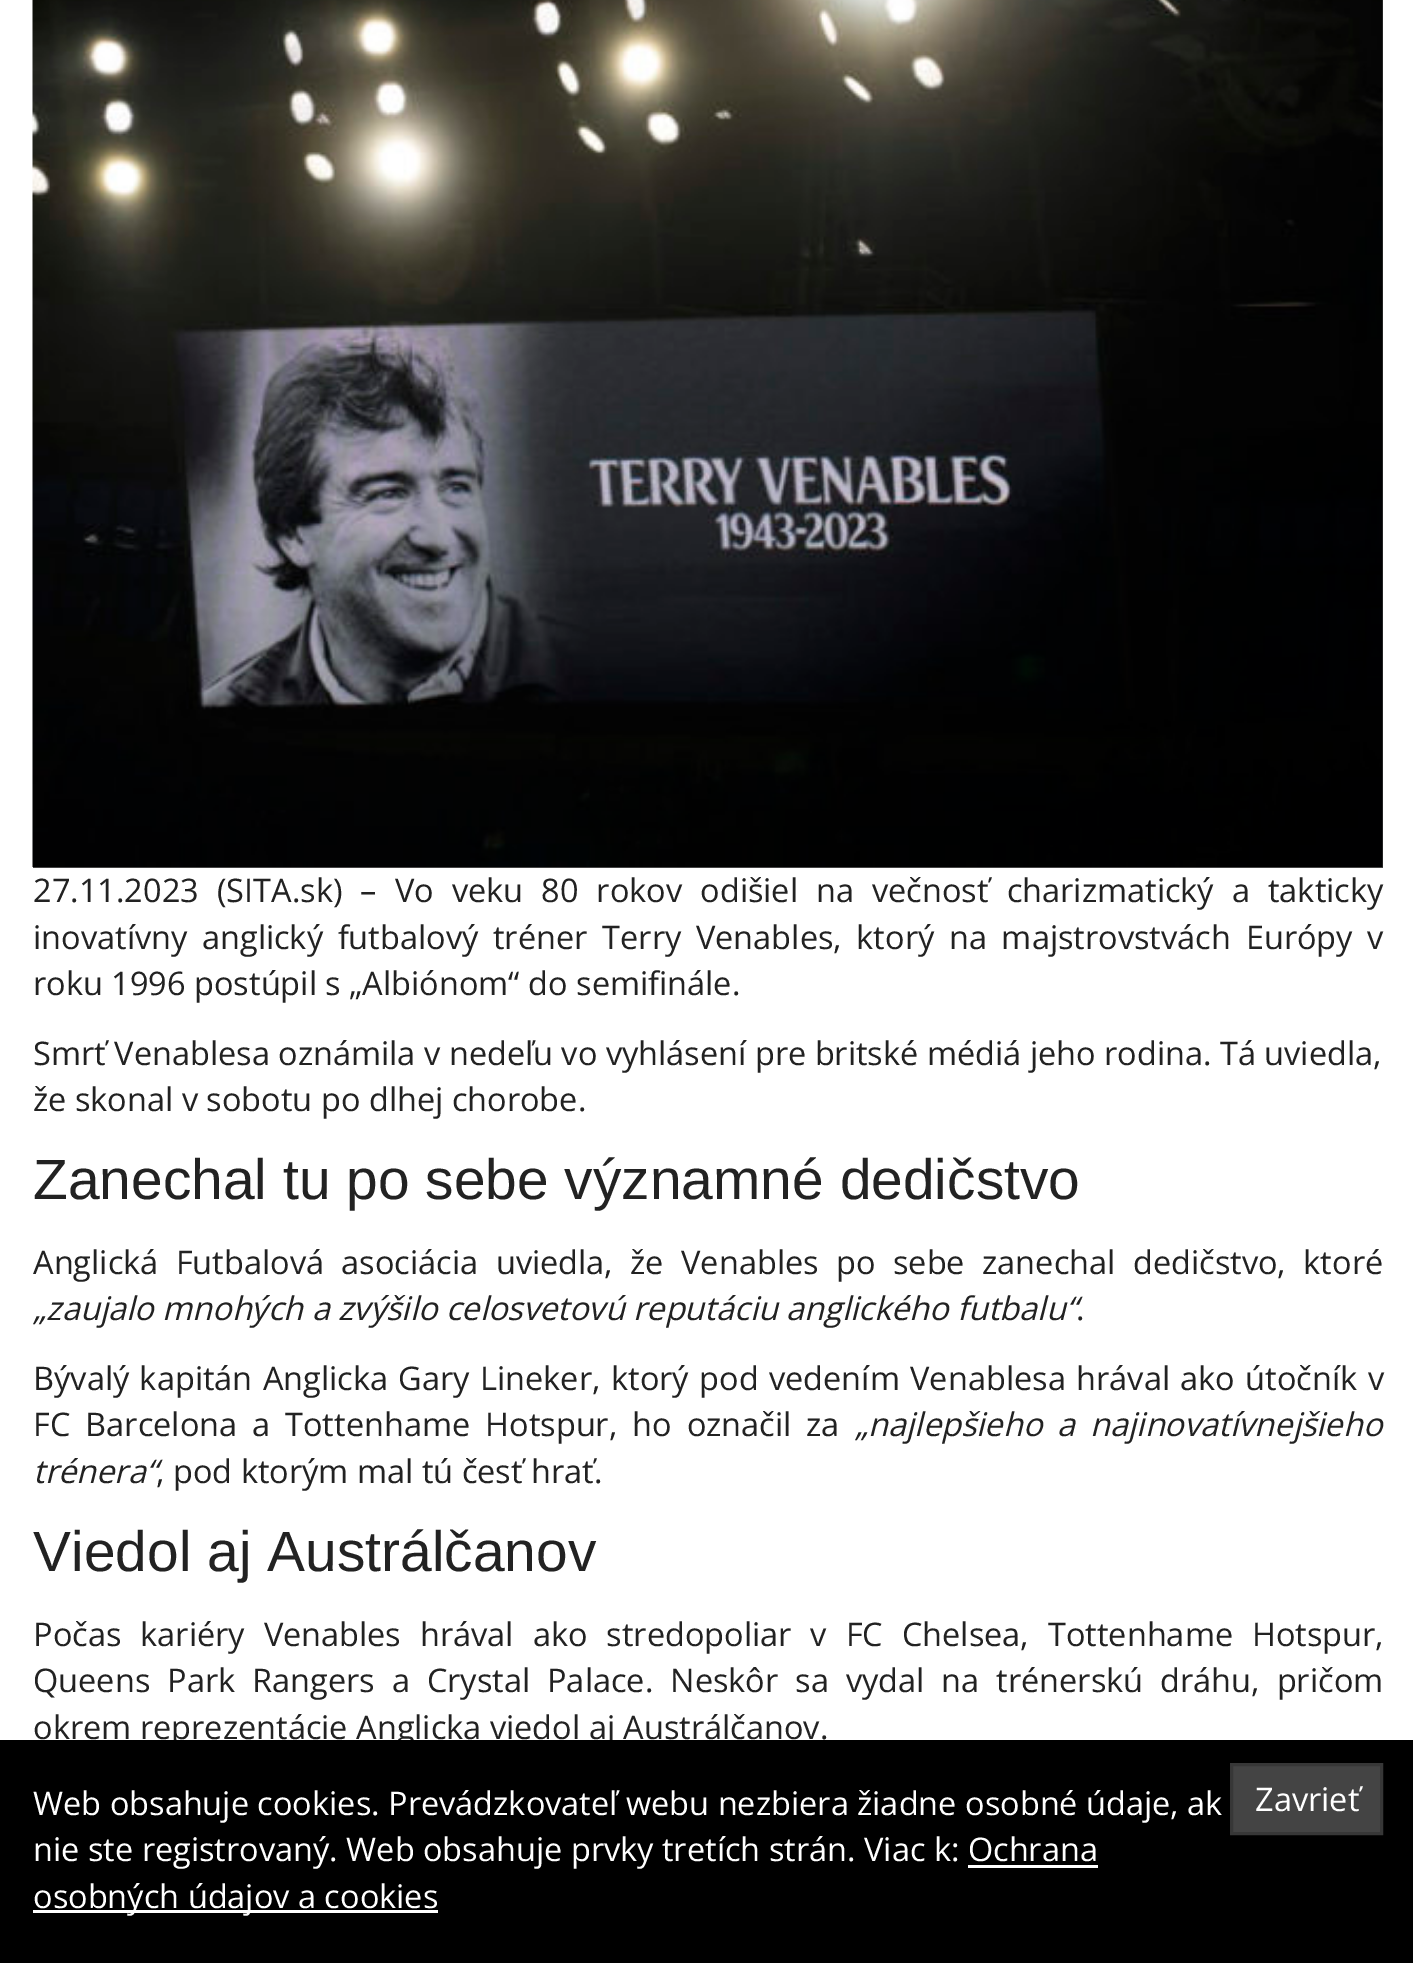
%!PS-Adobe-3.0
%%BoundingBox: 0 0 1413 1963
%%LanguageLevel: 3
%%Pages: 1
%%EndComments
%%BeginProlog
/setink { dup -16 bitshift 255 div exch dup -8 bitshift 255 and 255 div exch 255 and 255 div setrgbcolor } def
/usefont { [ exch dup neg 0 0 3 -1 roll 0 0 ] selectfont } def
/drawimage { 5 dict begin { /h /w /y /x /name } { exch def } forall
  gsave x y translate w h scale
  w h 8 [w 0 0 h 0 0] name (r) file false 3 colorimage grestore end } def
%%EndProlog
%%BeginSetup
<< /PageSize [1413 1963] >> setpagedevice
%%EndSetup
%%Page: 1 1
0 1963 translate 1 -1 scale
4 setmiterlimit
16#FFFFFF setink
0 0 1413 1963 rectfill
16#444444 setink
33 0 1350 868 rectfill
(img1.raw) 32 0 1351 867 drawimage
/OpenSans-Regular 32.5 usefont
16#222222 setink
33 902 moveto 9.6 0 32 (27.11.2023 \(SITA.sk\) – Vo veku 80 rokov odišiel na večnosť charizmatický a takticky) widthshow
33 949 moveto 6.25 0 32 (inovatívny anglický futbalový tréner Terry Venables, ktorý na majstrovstvách Európy v) widthshow
[
    [(roku 1996 postúpil s „Albiónom“ do semifinále.) 33 995]
    [(Smrť Venablesa oznámila v nedeľu vo vyhlásení pre britské médiá jeho rodina. Tá uviedla,) 33 1065]
    [(že skonal v sobotu po dlhej chorobe.) 33 1111]
] { aload pop moveto show } forall
/LiberationSans-Regular 56.9 usefont
33 1199 moveto (Zanechal tu po sebe významné dedičstvo) show
/OpenSans-Regular 32.5 usefont
33 1274 moveto 9 0 32 (Anglická Futbalová asociácia uviedla, že Venables po sebe zanechal dedičstvo, ktoré) widthshow
/OpenSans-Italic 32.5 usefont
33 1320 moveto („zaujalo mnohých a zvýšilo celosvetovú reputáciu anglického futbalu“) show
/OpenSans-Regular 32.5 usefont
1076 1320 moveto (.) show
33 1390 moveto 2 0 32 (Bývalý kapitán Anglicka Gary Lineker, ktorý pod vedením Venablesa hrával ako útočník v) widthshow
33 1436 moveto 6.5 0 32 (FC Barcelona a Tottenhame Hotspur, ho označil za) widthshow
/OpenSans-Italic 32.5 usefont
855 1436 moveto 6.5 0 32 („najlepšieho a najinovatívnejšieho) widthshow
33 1483 moveto (trénera“) show
/OpenSans-Regular 32.5 usefont
156 1483 moveto (, pod ktorým mal tú česť hrať.) show
/LiberationSans-Regular 56.9 usefont
33 1571 moveto (Viedol aj Austrálčanov) show
/OpenSans-Regular 32.5 usefont
33 1646 moveto 10.5 0 32 (Počas kariéry Venables hrával ako stredopoliar v FC Chelsea, Tottenhame Hotspur,) widthshow
33 1692 moveto 8.5 0 32 (Queens Park Rangers a Crystal Palace. Neskôr sa vydal na trénerskú dráhu, pričom) widthshow
33 1739 moveto (okrem reprezentácie Anglicka viedol aj Austrálčanov.) show
16#000000 setink
0 1740 1413 223 rectfill
16#FFFFFF setink
33 1815 moveto (Web obsahuje cookies. Prevádzkovateľ webu nezbiera žiadne osobné údaje, ak) show
33 1861 moveto (nie ste registrovaný. Web obsahuje prvky tretích strán. Viac k: Ochrana) show
33 1910 405 3 rectfill
33 1908 moveto (osobných údajov a cookies) show
968 1865 130 3 rectfill
16#444444 setink
1231.5 1764.5 moveto 1381.5 1764.5 lineto 1381.5 1833.5 lineto 1231.5 1833.5 lineto closepath gsave fill grestore
16#373737 setink
3 setlinewidth
stroke
16#FFFFFF setink
1255 1811 moveto (Zavrieť) show
showpage
%%EOF
